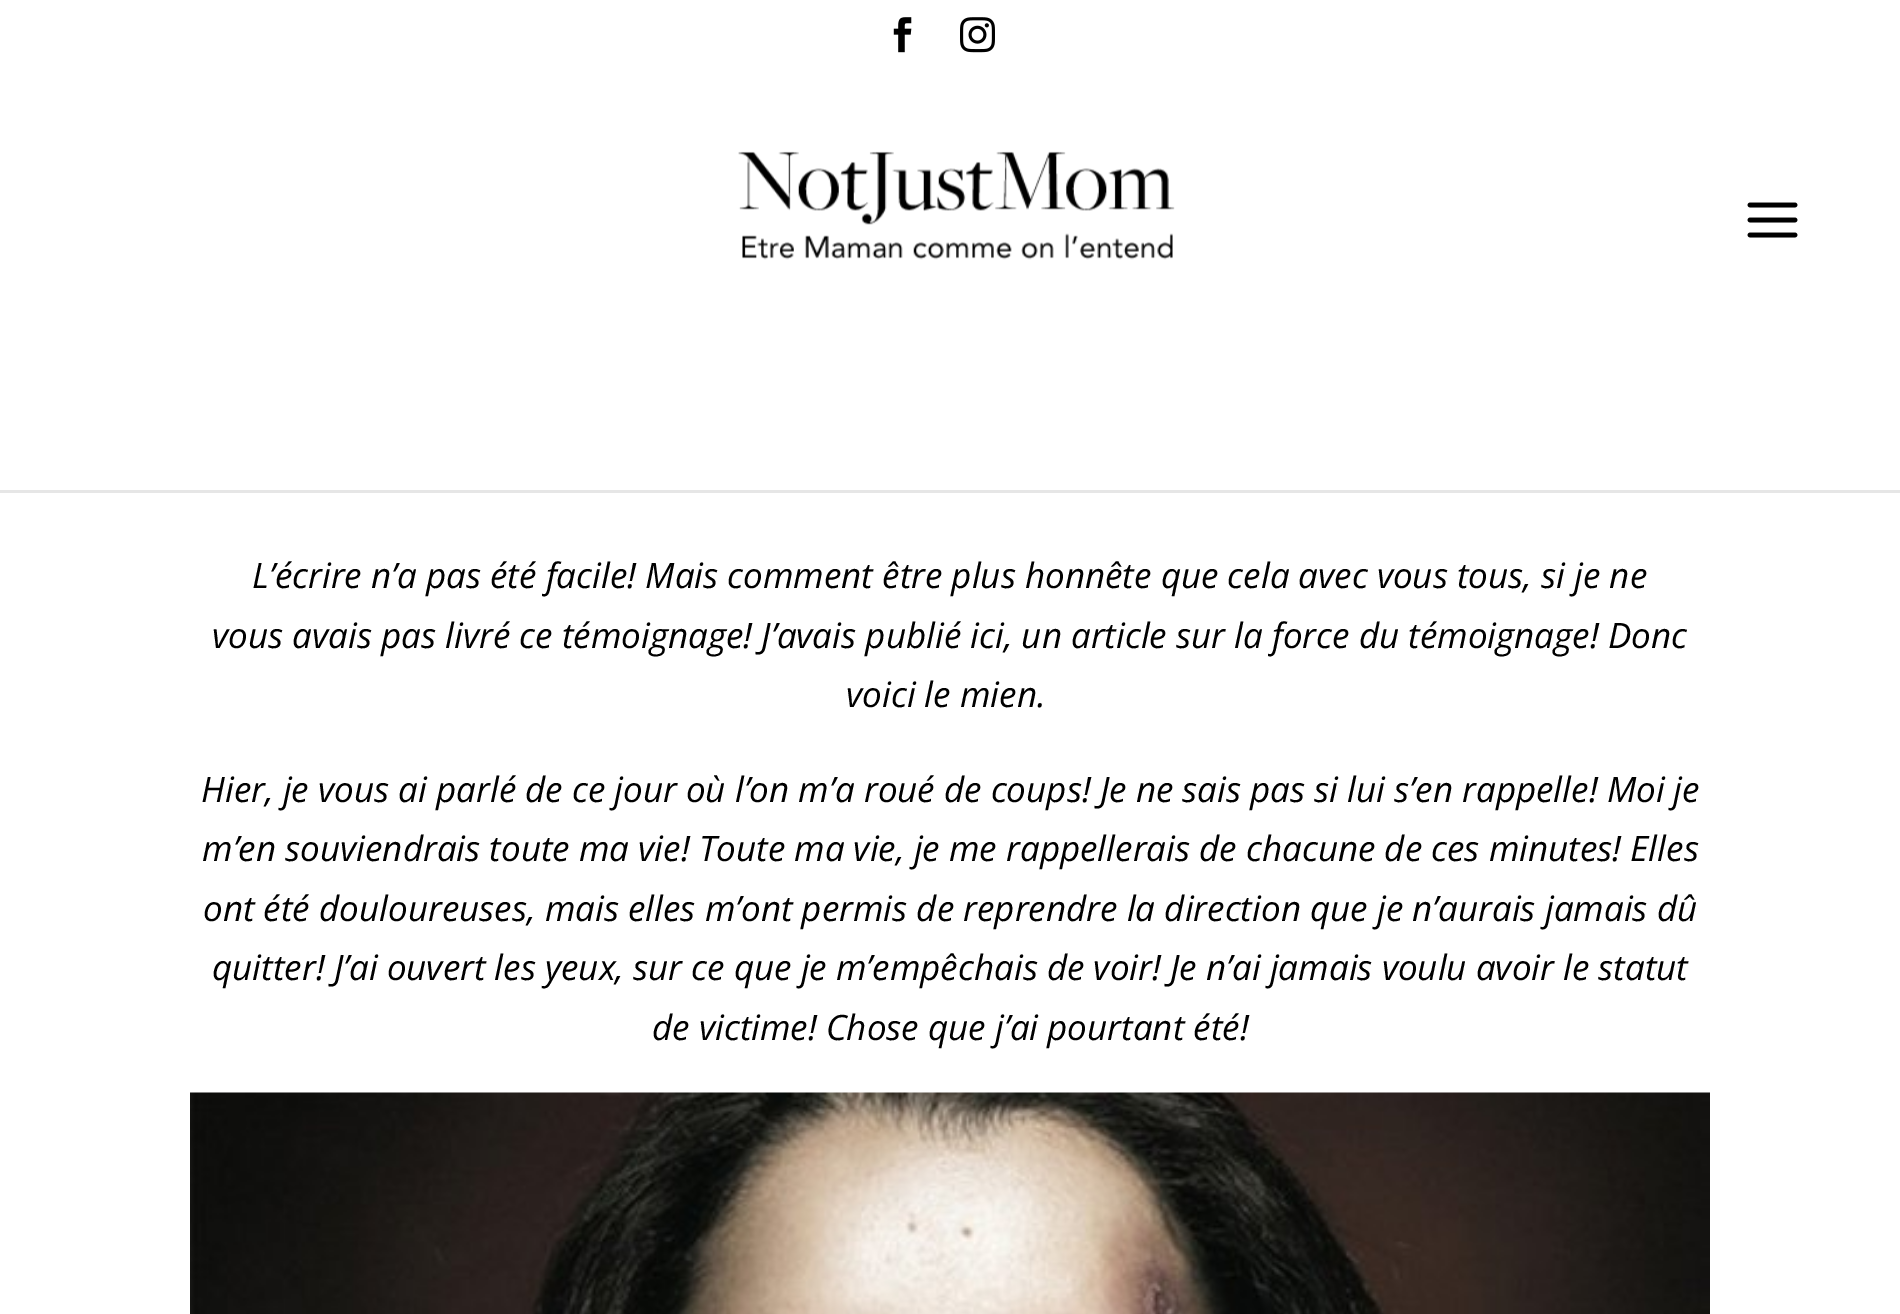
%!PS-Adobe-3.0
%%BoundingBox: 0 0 1900 1314
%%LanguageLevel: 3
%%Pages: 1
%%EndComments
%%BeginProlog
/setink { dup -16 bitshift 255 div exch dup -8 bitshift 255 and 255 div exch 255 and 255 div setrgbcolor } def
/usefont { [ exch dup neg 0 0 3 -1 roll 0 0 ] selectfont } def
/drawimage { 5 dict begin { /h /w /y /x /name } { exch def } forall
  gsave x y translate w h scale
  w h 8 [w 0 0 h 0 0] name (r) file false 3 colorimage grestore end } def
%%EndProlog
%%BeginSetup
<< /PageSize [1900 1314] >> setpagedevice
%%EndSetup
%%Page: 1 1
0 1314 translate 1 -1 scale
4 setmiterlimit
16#FFFFFF setink
0 0 1900 1314 rectfill
(img1.raw) 893 17 19 36 drawimage
(img2.raw) 960 17 35 36 drawimage
16#E6E6E6 setink
0 490 1900 3 rectfill
(img3.raw) 738 151 437 109 drawimage
(img4.raw) 1747 202 51 36 drawimage
/OpenSans-Italic 35 usefont
16#000000 setink
[
    [(L’écrire n’a pas été facile! Mais comment être plus honnête que cela avec vous tous, si je ne) 252 588]
    [(vous avais pas livré ce témoignage! J’avais publié ici, un article sur la force du témoignage! Donc) 212 648]
    [(voici le mien.) 846 707]
    [(Hier, je vous ai parlé de ce jour où l’on m’a roué de coups! Je ne sais pas si lui s’en rappelle! Moi je) 201 802]
    [(m’en souviendrais toute ma vie! Toute ma vie, je me rappellerais de chacune de ces minutes! Elles) 202 861]
    [(ont été douloureuses, mais elles m’ont permis de reprendre la direction que je n’aurais jamais dû) 203 921]
    [(quitter! J’ai ouvert les yeux, sur ce que je m’empêchais de voir! Je n’ai jamais voulu avoir le statut) 212 980]
    [(de victime! Chose que j’ai pourtant été!) 652 1040]
] { aload pop moveto show } forall
(img5.raw) 190 1092 1520 222 drawimage
showpage
%%EOF
